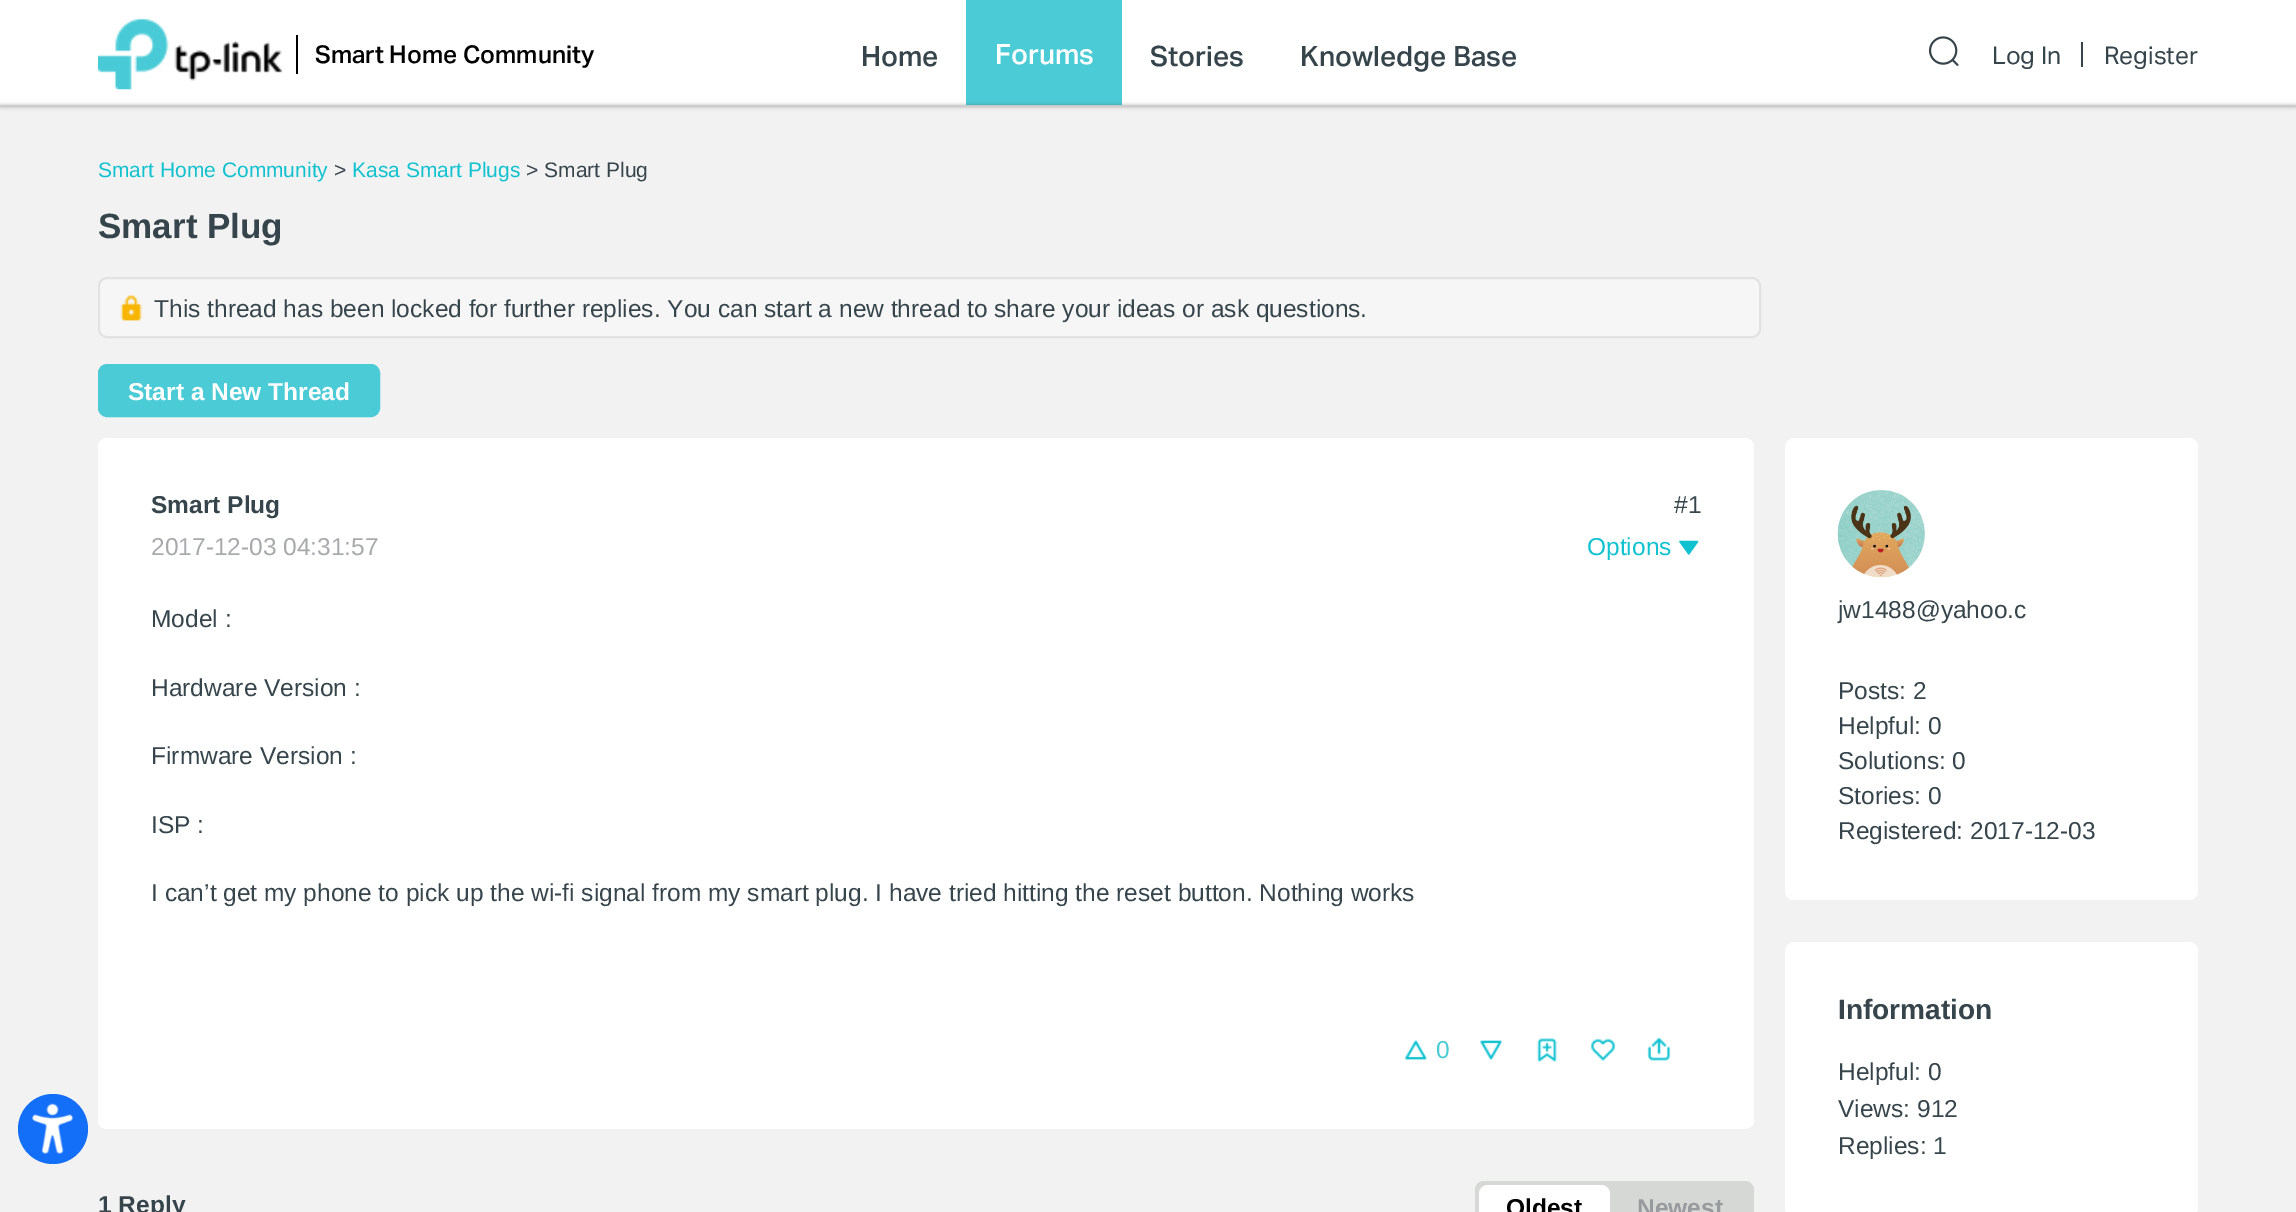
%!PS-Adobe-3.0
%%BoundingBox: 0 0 2296 1212
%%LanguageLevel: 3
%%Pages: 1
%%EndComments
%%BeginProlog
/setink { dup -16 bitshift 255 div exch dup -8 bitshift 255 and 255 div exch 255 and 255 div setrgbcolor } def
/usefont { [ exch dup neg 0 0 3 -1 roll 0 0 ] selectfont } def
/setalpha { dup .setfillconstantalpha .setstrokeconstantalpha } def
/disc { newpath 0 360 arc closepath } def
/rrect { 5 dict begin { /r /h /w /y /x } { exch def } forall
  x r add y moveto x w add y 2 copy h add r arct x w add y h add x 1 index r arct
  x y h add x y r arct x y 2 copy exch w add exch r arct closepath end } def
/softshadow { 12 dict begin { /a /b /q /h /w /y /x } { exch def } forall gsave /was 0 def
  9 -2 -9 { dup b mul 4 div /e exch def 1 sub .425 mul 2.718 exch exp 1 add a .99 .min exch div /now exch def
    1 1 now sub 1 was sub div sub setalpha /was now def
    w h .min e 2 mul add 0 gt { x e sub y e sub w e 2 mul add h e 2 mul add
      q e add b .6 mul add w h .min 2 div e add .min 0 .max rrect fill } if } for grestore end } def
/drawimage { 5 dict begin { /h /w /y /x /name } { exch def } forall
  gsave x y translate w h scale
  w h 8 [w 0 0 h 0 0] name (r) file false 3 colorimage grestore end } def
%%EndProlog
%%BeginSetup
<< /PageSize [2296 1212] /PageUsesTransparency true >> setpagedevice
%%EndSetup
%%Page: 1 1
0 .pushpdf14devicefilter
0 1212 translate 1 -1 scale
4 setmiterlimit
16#F2F2F2 setink
0 0 2296 1212 rectfill
16#146FF8 setink
53 1129 35 disc fill
(img1.raw) 32 1103 41 51 drawimage
16#FFFFFF setink
0 0 2296 105 rectfill
(img2.raw) 98 18 184 72 drawimage
16#000000 setink
296 35 2 39 rectfill
/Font-Medium 24.5 usefont
315 63 moveto (Smart Home Community) show
/Font-Medium 28 usefont
16#36444B setink
861 66 moveto (Home) show
16#4ACBD6 setink
966 0 156 105 rectfill
16#FFFFFF setink
995 64 moveto (Forums) show
16#36444B setink
1150 66 moveto (Stories) show
1300 66 moveto (Knowledge Base) show
(img3.raw) 1928 36 31 30 drawimage
2081 42 2 25 rectfill
/Font-Regular 24.5 usefont
1992 64 moveto (Log In) show
2104 64 moveto (Register) show
16#212121 setink
0 105 2296 2 0 2 0.3 softshadow
/LiberationSans-Regular 21 usefont
16#10C1D0 setink
98 177 moveto (Smart Home Community) show
16#36444B setink
334 177 moveto (>) show
16#10C1D0 setink
352 177 moveto (Kasa Smart Plugs) show
16#36444B setink
526 177 moveto (> Smart Plug) show
/LiberationSans-Bold 35 usefont
98 238 moveto (Smart Plug) show
16#F6F6F6 setink
99 278 1661 59 8 rrect gsave fill grestore
16#E2E2E2 setink
2 setlinewidth
stroke
(img4.raw) 120 295 23 26 drawimage
/LiberationSans-Regular 24.5 usefont
16#36444B setink
154 317 moveto (This thread has been locked for further replies. You can start a new thread to share your ideas or ask questions.) show
16#4ACBD6 setink
99 365 280 51 8 rrect gsave fill grestore
stroke
/LiberationSans-Bold 24.5 usefont
16#FFFFFF setink
128 400 moveto (Start a New Thread) show
98 438 1656 691 9 rrect fill
16#36444B setink
151 513 moveto (Smart Plug) show
/LiberationSans-Regular 24.5 usefont
16#A7A9AC setink
151 555 moveto (2017-12-03 04:31:57) show
16#36444B setink
[
    [(Model :) 151 627]
    [(Hardware Version :) 151 696]
    [(Firmware Version :) 151 764]
    [(ISP :) 151 833]
    [(I can’t get my phone to pick up the wi-fi signal from my smart plug. I have tried hitting the reset button. Nothing works) 151 901]
] { aload pop moveto show } forall
(img5.raw) 1405 1040 22 20 drawimage
16#4ACBD6 setink
1436 1058 moveto (0) show
(img6.raw) 1480 1040 22 20 drawimage
(img7.raw) 1537 1038 20 24 drawimage
(img8.raw) 1590 1038 26 23 drawimage
(img9.raw) 1647 1037 24 24 drawimage
16#36444B setink
1674 513 moveto (#1) show
16#10C1D0 setink
1587 555 moveto (Options) show
(img10.raw) 1679 540 20 15 drawimage
/LiberationSans-Bold 24.5 usefont
16#36444B setink
98 1213 moveto (1 Reply) show
16#D6D8D6 setink
1475 1181 279 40 9 rrect fill
16#FFFFFF setink
1479 1185 131 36 9 rrect fill
16#000000 setink
1506 1216 moveto (Oldest) show
16#989B9D setink
1637 1216 moveto (Newest) show
16#FFFFFF setink
1785 438 413 462 9 rrect fill
(img11.raw) 1837 490 88 88 drawimage
/LiberationSans-Regular 24.5 usefont
16#36444B setink
[
    [(jw1488@yahoo.c) 1838 618]
    [(Posts: 2) 1838 699]
    [(Helpful: 0) 1838 734]
    [(Solutions: 0) 1838 769]
    [(Stories: 0) 1838 804]
    [(Registered: 2017-12-03) 1838 839]
] { aload pop moveto show } forall
16#FFFFFF setink
1785 942 413 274 9 rrect fill
/LiberationSans-Bold 28 usefont
16#36444B setink
1838 1019 moveto (Information) show
/LiberationSans-Regular 24.5 usefont
[
    [(Helpful: 0) 1838 1080]
    [(Views: 912) 1838 1117]
    [(Replies: 1) 1838 1154]
] { aload pop moveto show } forall
.poppdf14devicefilter showpage
%%EOF
